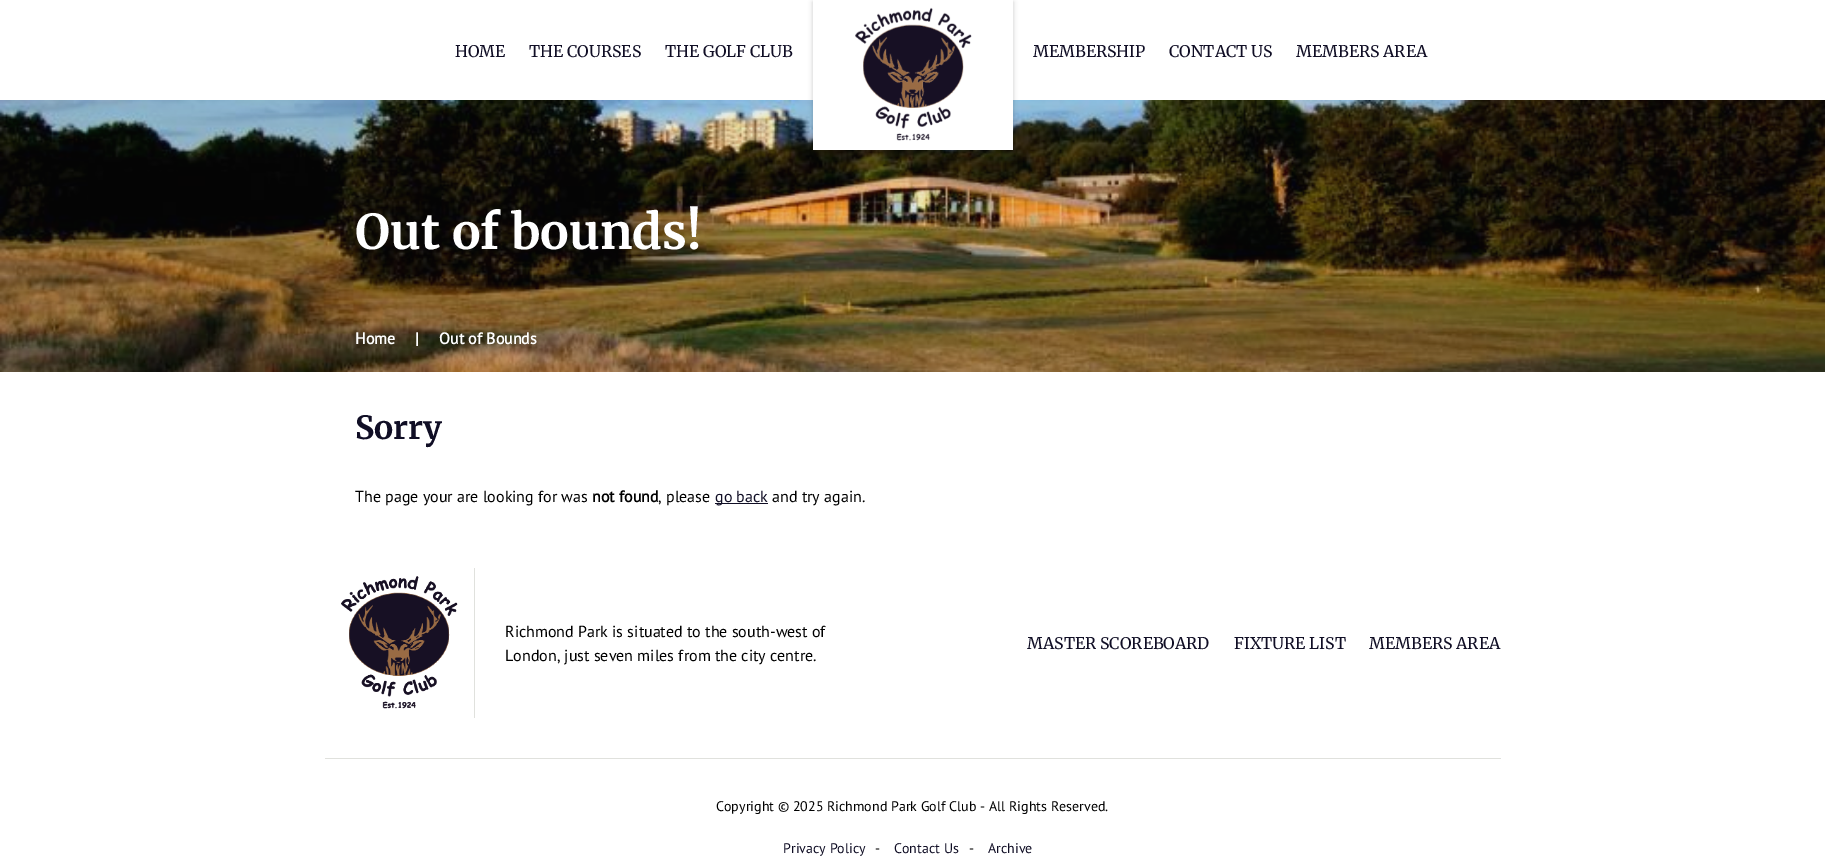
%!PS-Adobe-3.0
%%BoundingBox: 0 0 1825 868
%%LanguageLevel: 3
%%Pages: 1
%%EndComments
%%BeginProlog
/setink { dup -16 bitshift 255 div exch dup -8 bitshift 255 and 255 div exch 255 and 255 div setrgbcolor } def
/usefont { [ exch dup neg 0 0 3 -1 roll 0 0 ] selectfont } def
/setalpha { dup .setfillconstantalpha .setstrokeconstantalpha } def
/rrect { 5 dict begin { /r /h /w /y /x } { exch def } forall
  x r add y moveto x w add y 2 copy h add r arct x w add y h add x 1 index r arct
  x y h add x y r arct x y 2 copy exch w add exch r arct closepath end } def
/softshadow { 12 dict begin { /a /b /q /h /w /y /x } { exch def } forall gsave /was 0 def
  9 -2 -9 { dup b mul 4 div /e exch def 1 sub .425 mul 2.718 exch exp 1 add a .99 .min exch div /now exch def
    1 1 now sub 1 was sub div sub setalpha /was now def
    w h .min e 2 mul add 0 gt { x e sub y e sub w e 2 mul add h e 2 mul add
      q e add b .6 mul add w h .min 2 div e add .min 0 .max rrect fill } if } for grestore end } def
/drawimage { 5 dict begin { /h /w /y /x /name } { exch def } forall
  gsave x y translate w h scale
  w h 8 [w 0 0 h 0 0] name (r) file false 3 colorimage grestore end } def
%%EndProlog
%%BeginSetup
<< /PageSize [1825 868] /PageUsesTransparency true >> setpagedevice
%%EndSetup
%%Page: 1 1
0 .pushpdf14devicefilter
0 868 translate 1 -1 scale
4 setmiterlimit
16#FFFFFF setink
0 0 1825 868 rectfill
(img2.raw) 0 100 1825 272 drawimage
16#000000 setink
813 2 200 150 0 2.5 0.2 softshadow
16#FFFFFF setink
813 0 200 150 rectfill
(img1.raw) 855 7 117 134 drawimage
/Merriweather-Regular 16 usefont
16#100E25 setink
[
    [(HOME) 455 57]
    [(THE COURSES) 529 57]
    [(THE GOLF CLUB) 665 57]
    [(MEMBERSHIP) 1033 57]
    [(CONTACT US) 1169 57]
    [(MEMBERS AREA) 1296 57]
] { aload pop moveto show } forall
/Merriweather-Bold 48 usefont
16#FFFFFF setink
355 249 moveto (Out of bounds!) show
/PTSans-Bold 16 usefont
[
    [(Home) 355 344]
    [(|) 415 344]
    [(Out of Bounds) 439 344]
] { aload pop moveto show } forall
/Merriweather-Bold 32 usefont
16#100E25 setink
355 439 moveto (Sorry) show
/PTSans-Regular 16 usefont
16#000000 setink
355 502 moveto (The page your are looking for was) show
/PTSans-Bold 16 usefont
592 502 moveto (not found) show
/PTSans-Regular 16 usefont
658 502 moveto (, please) show
16#100E25 setink
715 503 53 1 rectfill
715 502 moveto (go back) show
16#000000 setink
772 502 moveto (and try again.) show
(img3.raw) 341 576 117 133 drawimage
16#E0E1DD setink
474 568 1 150 rectfill
(img4.raw) 341 576 117 133 drawimage
16#000000 setink
505 637 moveto (Richmond Park is situated to the south-west of) show
505 661 moveto (London, just seven miles from the city centre.) show
/Merriweather-Regular 16 usefont
16#100E25 setink
[
    [(MASTER SCOREBOARD) 1027 649]
    [(FIXTURE LIST) 1234 649]
    [(MEMBERS AREA) 1369 649]
] { aload pop moveto show } forall
16#E0E1DD setink
325 758 1176 1 rectfill
/PTSans-Regular 14 usefont
16#000000 setink
716 811 moveto (Copyright © 2025 Richmond Park Golf Club - All Rights Reserved.) show
16#100E25 setink
783 853 moveto (Privacy Policy) show
16#000000 setink
875 853 moveto (-) show
16#100E25 setink
894 853 moveto (Contact Us) show
16#000000 setink
969 853 moveto (-) show
16#100E25 setink
988 853 moveto (Archive) show
.poppdf14devicefilter showpage
%%EOF
